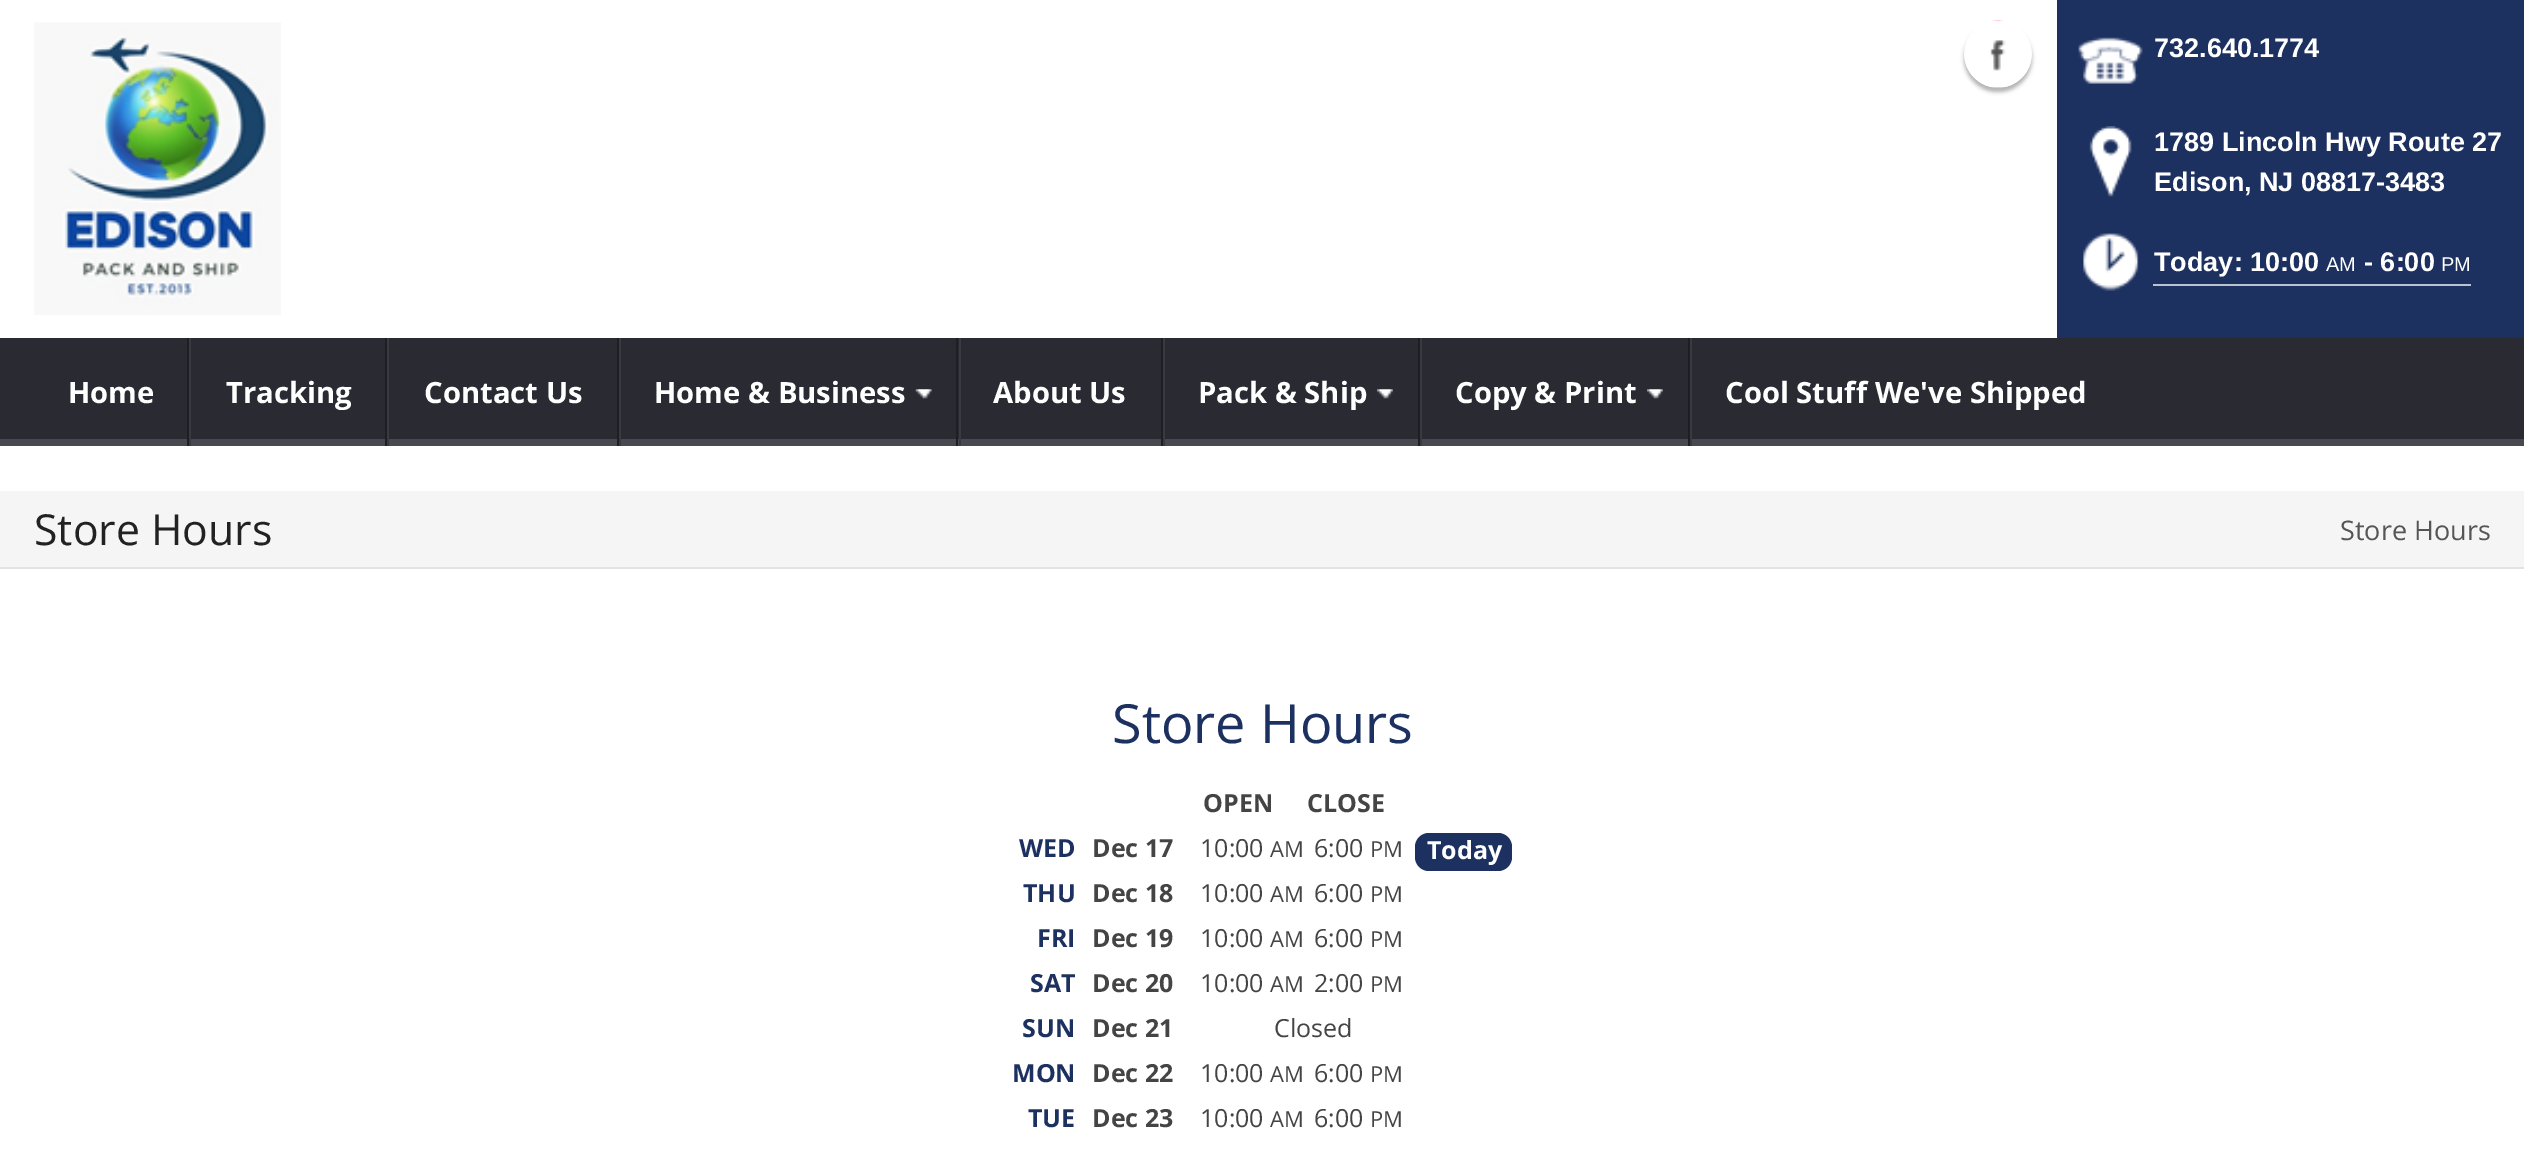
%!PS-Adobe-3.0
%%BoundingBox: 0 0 2524 1166
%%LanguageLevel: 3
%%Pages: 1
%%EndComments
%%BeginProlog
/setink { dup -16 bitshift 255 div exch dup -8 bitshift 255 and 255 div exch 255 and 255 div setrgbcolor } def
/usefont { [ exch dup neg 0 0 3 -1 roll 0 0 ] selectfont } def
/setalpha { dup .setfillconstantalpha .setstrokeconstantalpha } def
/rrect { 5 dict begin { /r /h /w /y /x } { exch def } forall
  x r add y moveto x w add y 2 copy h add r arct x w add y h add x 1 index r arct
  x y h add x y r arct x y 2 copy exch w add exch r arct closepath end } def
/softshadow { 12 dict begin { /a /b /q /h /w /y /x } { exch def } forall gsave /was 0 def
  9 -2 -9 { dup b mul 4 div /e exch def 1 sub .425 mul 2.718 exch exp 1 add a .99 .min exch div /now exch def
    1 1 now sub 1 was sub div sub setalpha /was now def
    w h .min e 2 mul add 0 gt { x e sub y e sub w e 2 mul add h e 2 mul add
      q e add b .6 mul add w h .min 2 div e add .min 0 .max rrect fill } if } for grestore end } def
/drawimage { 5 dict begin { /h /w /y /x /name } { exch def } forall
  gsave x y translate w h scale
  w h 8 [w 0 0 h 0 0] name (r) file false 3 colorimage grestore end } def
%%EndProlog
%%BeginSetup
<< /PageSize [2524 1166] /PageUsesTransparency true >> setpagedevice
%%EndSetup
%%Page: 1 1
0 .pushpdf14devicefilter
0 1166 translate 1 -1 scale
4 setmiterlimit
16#FFFFFF setink
0 0 2524 1166 rectfill
(img1.raw) 34 22 247 293 drawimage
16#000000 setink
1964 25 68 67 33.5 2 0.3 softshadow
(img2.raw) 1964 20 68 68 drawimage
16#1D3160 setink
2057 0 467 338 rectfill
(img3.raw) 2078 37 65 47 drawimage
/LiberationSans-Bold 27 usefont
16#FFFFFF setink
2154 57 moveto (732.640.1774) show
(img4.raw) 2089 126 43 71 drawimage
2154 151 moveto (1789 Lincoln Hwy Route 27) show
2154 191 moveto (Edison, NJ 08817-3483) show
(img5.raw) 2083 233 56 58 drawimage
16#BBC1CF setink
2153 284 318 2 rectfill
16#FFFFFF setink
2154 271 moveto (Today: 10:00) show
/LiberationSans-Regular 20 usefont
2326 271 moveto (AM) show
/LiberationSans-Bold 27 usefont
2364 271 moveto (- 6:00) show
/LiberationSans-Regular 20 usefont
2441 271 moveto (PM) show
[
    [0 338 2524 101 16#292A32]
    [0 439 2524 7 16#484950]
    [187 338 2 108 16#1E1F25]
] { aload pop setink rectfill } forall
/OpenSans-Bold 29.25 usefont
16#FFFFFF setink
68 403 moveto (Home) show
16#1E1F25 setink
385 338 2 108 rectfill
16#393A41 setink
189 338 2 108 rectfill
16#FFFFFF setink
226 403 moveto (Tracking) show
16#1E1F25 setink
617 338 2 108 rectfill
16#393A41 setink
387 338 2 108 rectfill
16#FFFFFF setink
424 403 moveto (Contact Us) show
16#1E1F25 setink
956 338 2 108 rectfill
16#393A41 setink
619 338 2 108 rectfill
16#FFFFFF setink
654 403 moveto (Home & Business) show
(img6.raw) 915 389 17 10 drawimage
16#1E1F25 setink
1161 338 2 108 rectfill
16#393A41 setink
959 338 2 108 rectfill
16#FFFFFF setink
993 403 moveto (About Us) show
16#1E1F25 setink
1418 338 2 108 rectfill
16#393A41 setink
1163 338 2 108 rectfill
16#FFFFFF setink
1198 403 moveto (Pack & Ship) show
(img7.raw) 1377 389 16 10 drawimage
16#1E1F25 setink
1688 338 2 108 rectfill
16#393A41 setink
1420 338 2 108 rectfill
16#FFFFFF setink
1455 403 moveto (Copy & Print) show
(img7.raw) 1647 389 16 10 drawimage
16#393A41 setink
1690 338 2 108 rectfill
16#FFFFFF setink
1725 403 moveto (Cool Stuff We've Shipped) show
16#F5F5F5 setink
0 491 2524 76 rectfill
16#E3E3E3 setink
0 567 2524 2 rectfill
/OpenSans-Regular 42.75 usefont
16#222222 setink
34 545 moveto (Store Hours) show
/OpenSans-Regular 27 usefont
16#555555 setink
2340 540 moveto (Store Hours) show
/OpenSans-Regular 54 usefont
16#1D3160 setink
1112 743 moveto (Store Hours) show
/OpenSans-Bold 25 usefont
16#444444 setink
1203 812 moveto (OPEN) show
1307 812 moveto (CLOSE) show
16#1D3160 setink
1019 857 moveto (WED) show
16#444444 setink
1092 857 moveto (Dec 17) show
/OpenSans-Regular 25 usefont
1200 857 moveto (10:00) show
/OpenSans-Regular 22 usefont
1270 857 moveto (AM) show
/OpenSans-Regular 25 usefont
1314 857 moveto (6:00) show
/OpenSans-Regular 22 usefont
1370 857 moveto (PM) show
16#1D3160 setink
1415 833 97 38 14 rrect fill
/OpenSans-Bold 25 usefont
16#FFFFFF setink
1427 859 moveto (Today) show
16#1D3160 setink
1023 902 moveto (THU) show
16#444444 setink
1092 902 moveto (Dec 18) show
/OpenSans-Regular 25 usefont
1200 902 moveto (10:00) show
/OpenSans-Regular 22 usefont
1270 902 moveto (AM) show
/OpenSans-Regular 25 usefont
1314 902 moveto (6:00) show
/OpenSans-Regular 22 usefont
1370 902 moveto (PM) show
/OpenSans-Bold 25 usefont
16#1D3160 setink
1037 947 moveto (FRI) show
16#444444 setink
1092 947 moveto (Dec 19) show
/OpenSans-Regular 25 usefont
1200 947 moveto (10:00) show
/OpenSans-Regular 22 usefont
1270 947 moveto (AM) show
/OpenSans-Regular 25 usefont
1314 947 moveto (6:00) show
/OpenSans-Regular 22 usefont
1370 947 moveto (PM) show
/OpenSans-Bold 25 usefont
16#1D3160 setink
1030 992 moveto (SAT) show
16#444444 setink
1092 992 moveto (Dec 20) show
/OpenSans-Regular 25 usefont
1200 992 moveto (10:00) show
/OpenSans-Regular 22 usefont
1270 992 moveto (AM) show
/OpenSans-Regular 25 usefont
1314 992 moveto (2:00) show
/OpenSans-Regular 22 usefont
1370 992 moveto (PM) show
/OpenSans-Bold 25 usefont
16#1D3160 setink
1022 1037 moveto (SUN) show
16#444444 setink
1092 1037 moveto (Dec 21) show
/OpenSans-Regular 25 usefont
1274 1037 moveto (Closed) show
/OpenSans-Bold 25 usefont
16#1D3160 setink
1012 1082 moveto (MON) show
16#444444 setink
1092 1082 moveto (Dec 22) show
/OpenSans-Regular 25 usefont
1200 1082 moveto (10:00) show
/OpenSans-Regular 22 usefont
1270 1082 moveto (AM) show
/OpenSans-Regular 25 usefont
1314 1082 moveto (6:00) show
/OpenSans-Regular 22 usefont
1370 1082 moveto (PM) show
/OpenSans-Bold 25 usefont
16#1D3160 setink
1028 1127 moveto (TUE) show
16#444444 setink
1092 1127 moveto (Dec 23) show
/OpenSans-Regular 25 usefont
1200 1127 moveto (10:00) show
/OpenSans-Regular 22 usefont
1270 1127 moveto (AM) show
/OpenSans-Regular 25 usefont
1314 1127 moveto (6:00) show
/OpenSans-Regular 22 usefont
1370 1127 moveto (PM) show
.poppdf14devicefilter showpage
%%EOF
